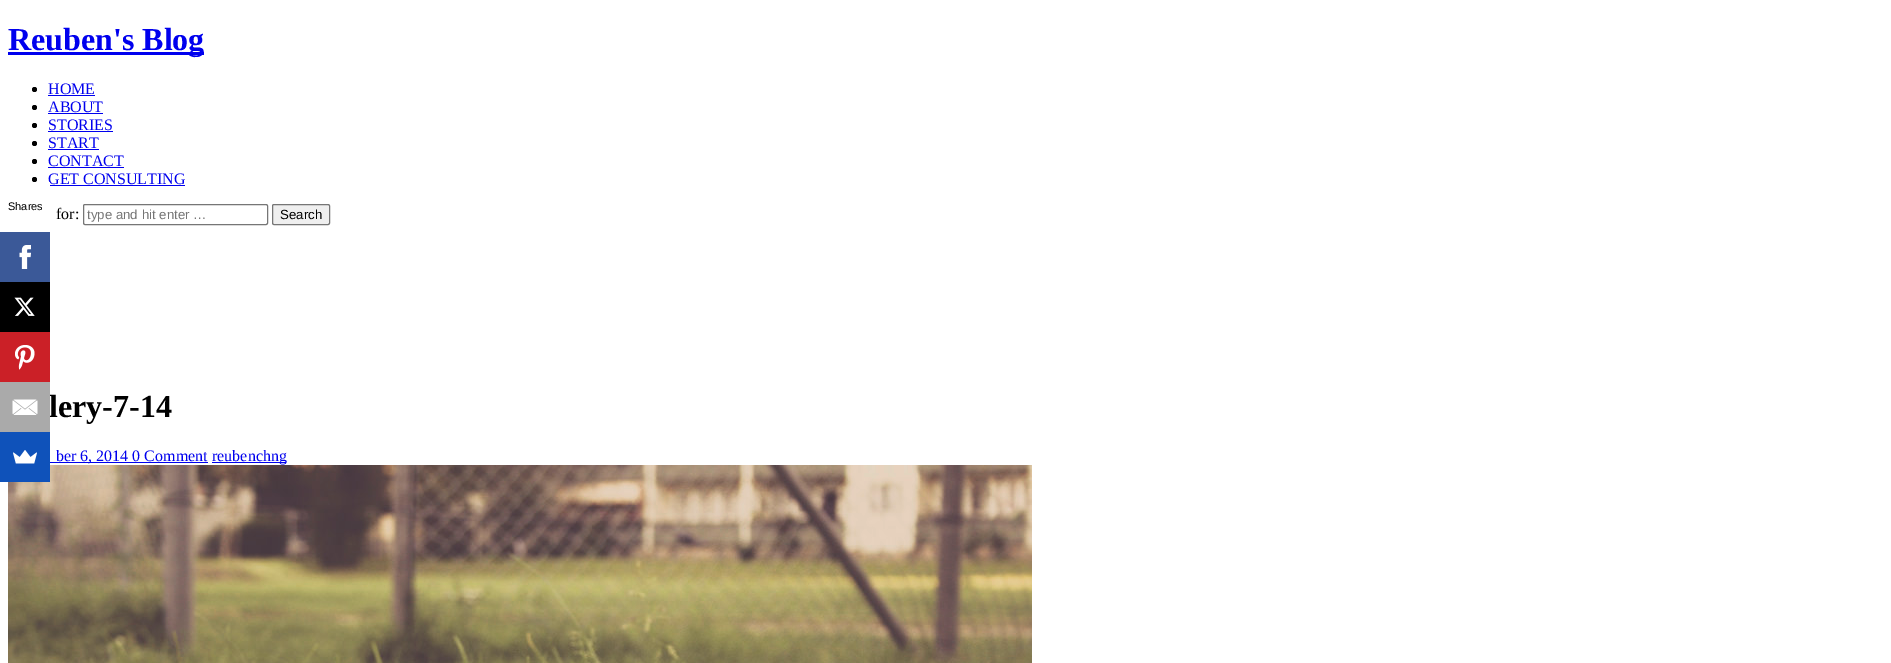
%!PS-Adobe-3.0
%%BoundingBox: 0 0 1891 663
%%LanguageLevel: 3
%%Pages: 1
%%EndComments
%%BeginProlog
/setink { dup -16 bitshift 255 div exch dup -8 bitshift 255 and 255 div exch 255 and 255 div setrgbcolor } def
/usefont { [ exch dup neg 0 0 3 -1 roll 0 0 ] selectfont } def
/disc { newpath 0 360 arc closepath } def
/rrect { 5 dict begin { /r /h /w /y /x } { exch def } forall
  x r add y moveto x w add y 2 copy h add r arct x w add y h add x 1 index r arct
  x y h add x y r arct x y 2 copy exch w add exch r arct closepath end } def
/drawimage { 5 dict begin { /h /w /y /x /name } { exch def } forall
  gsave x y translate w h scale
  w h 8 [w 0 0 h 0 0] name (r) file false 3 colorimage grestore end } def
%%EndProlog
%%BeginSetup
<< /PageSize [1891 663] >> setpagedevice
%%EndSetup
%%Page: 1 1
0 663 translate 1 -1 scale
4 setmiterlimit
16#FFFFFF setink
0 0 1891 663 rectfill
16#0000EE setink
8 52 196 3 rectfill
/LiberationSerif-Bold 32 usefont
8 50 moveto (Reuben's Blog) show
16#000000 setink
34.5 89.5 2.5 disc fill
/LiberationSerif-Regular 16 usefont
16#0000EE setink
48 94 moveto (HOME) show
48 95 47 1 rectfill
16#000000 setink
34.5 107.5 2.5 disc fill
16#0000EE setink
48 112 moveto (ABOUT) show
48 113 55 1 rectfill
16#000000 setink
34.5 125.5 2.5 disc fill
16#0000EE setink
48 130 moveto (STORIES) show
48 131 65 1 rectfill
16#000000 setink
34.5 143.5 2.5 disc fill
16#0000EE setink
48 148 moveto (START) show
48 149 51 1 rectfill
16#000000 setink
34.5 161.5 2.5 disc fill
16#0000EE setink
48 166 moveto (CONTACT) show
48 167 76 1 rectfill
16#000000 setink
34.5 179.5 2.5 disc fill
16#0000EE setink
48 184 moveto (GET CONSULTING) show
48 185 137 1 rectfill
16#000000 setink
56 219 moveto (for:) show
16#767676 setink
83.5 204.5 184 20 1.5 rrect stroke
/LiberationSans-Regular 13.25 usefont
16#757575 setink
87 219 moveto (type and hit enter …) show
16#EFEFEF setink
272.5 204.5 57 20 1.5 rrect gsave fill grestore
16#767676 setink
stroke
16#000000 setink
280 219 moveto (Search) show
/LiberationSerif-Bold 32 usefont
49 417 moveto (lery-7-14) show
16#0000EE setink
50 462 78 1 rectfill
/LiberationSerif-Regular 16 usefont
56 461 moveto (ber 6, 2014 0 Comment) show
128 462 80 1 rectfill
212 462 74 1 rectfill
212 461 moveto (reubenchng) show
(img1.raw) 8 465 1024 198 drawimage
16#FFFFFF setink
48 182 2 4 rectfill
/LiberationSans-Regular 11 usefont
16#000000 setink
8 210 moveto (Shares) show
16#3B5998 setink
0 232 50 50 rectfill
(img2.raw) 19 245 12 24 drawimage
16#000000 setink
0 282 50 50 rectfill
(img3.raw) 14 297 21 19 drawimage
16#CB2027 setink
0 332 50 50 rectfill
(img4.raw) 15 345 20 25 drawimage
16#AAAAAA setink
0 382 50 50 rectfill
(img5.raw) 12 399 26 16 drawimage
16#0F52BA setink
0 432 50 50 rectfill
(img6.raw) 13 450 24 14 drawimage
showpage
%%EOF
